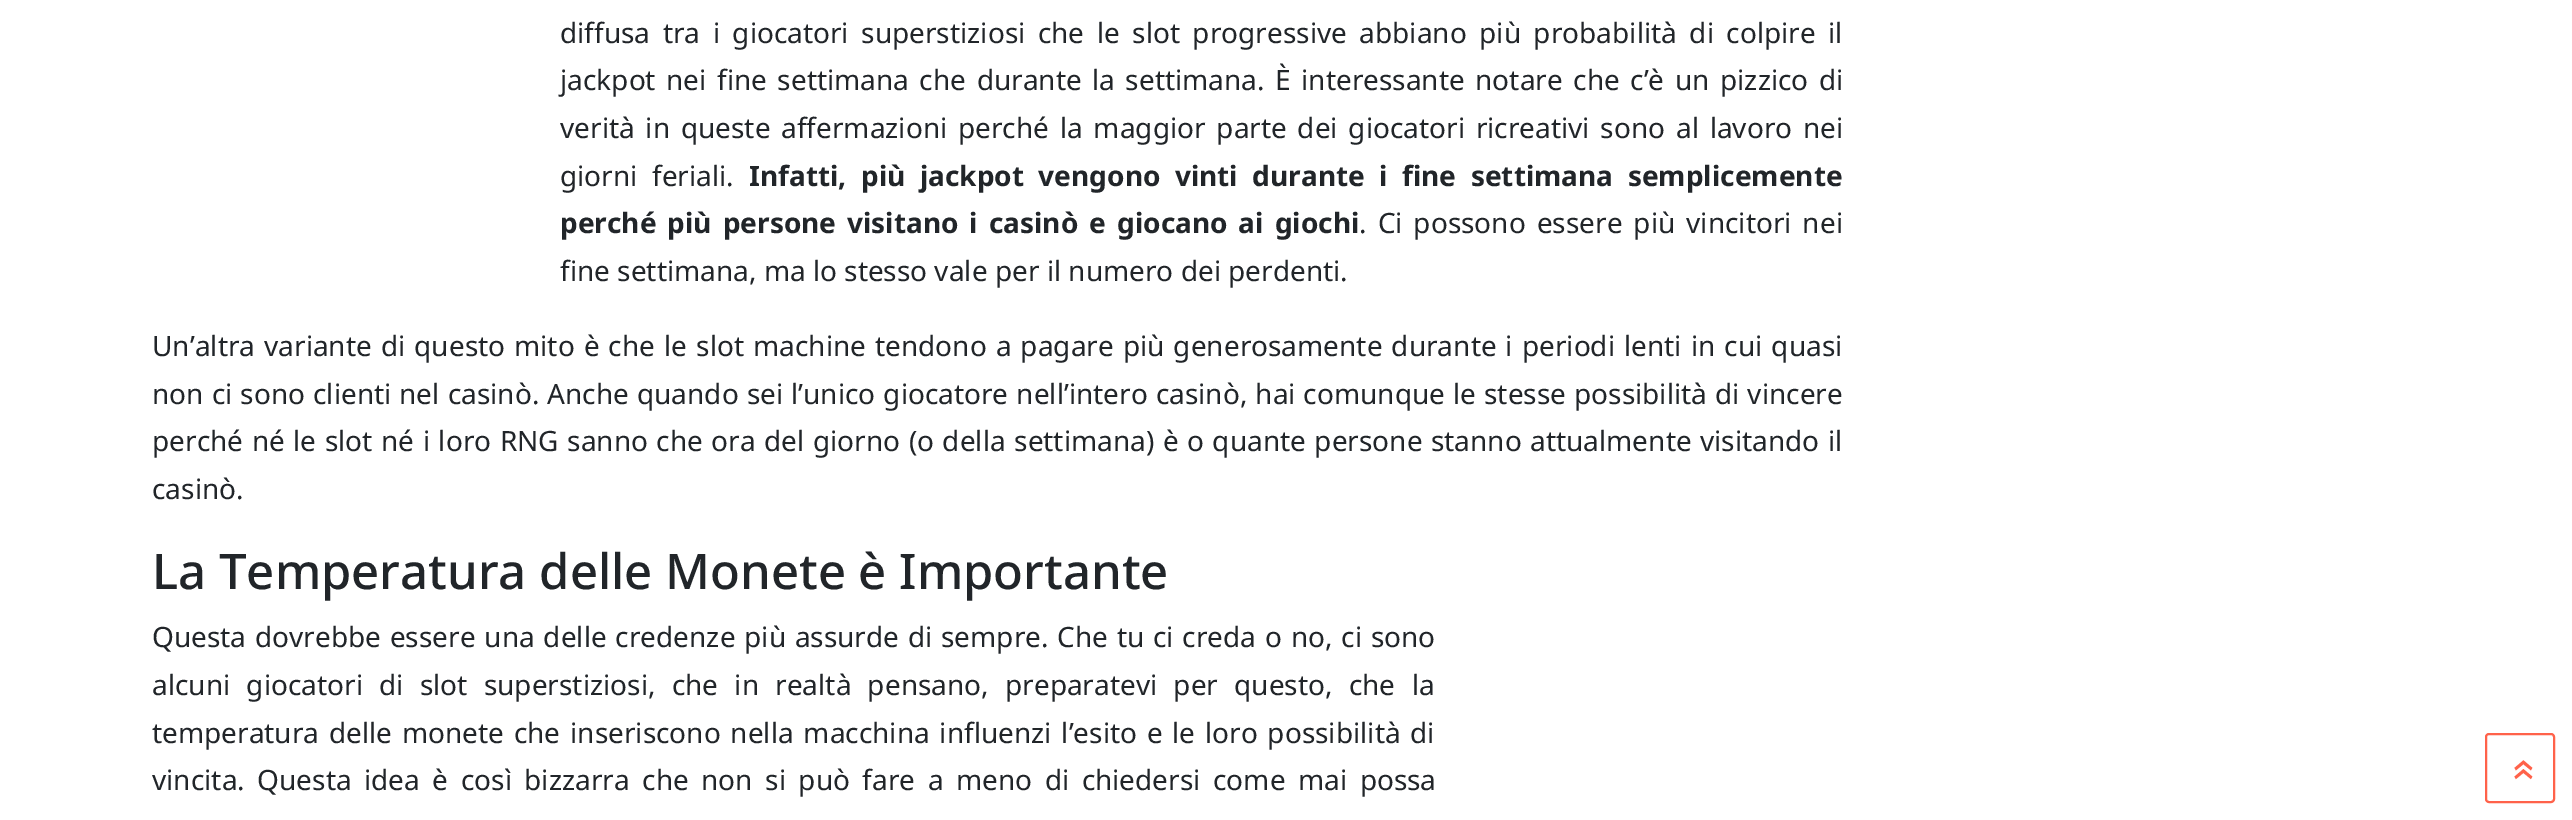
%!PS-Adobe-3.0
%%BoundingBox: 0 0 2572 820
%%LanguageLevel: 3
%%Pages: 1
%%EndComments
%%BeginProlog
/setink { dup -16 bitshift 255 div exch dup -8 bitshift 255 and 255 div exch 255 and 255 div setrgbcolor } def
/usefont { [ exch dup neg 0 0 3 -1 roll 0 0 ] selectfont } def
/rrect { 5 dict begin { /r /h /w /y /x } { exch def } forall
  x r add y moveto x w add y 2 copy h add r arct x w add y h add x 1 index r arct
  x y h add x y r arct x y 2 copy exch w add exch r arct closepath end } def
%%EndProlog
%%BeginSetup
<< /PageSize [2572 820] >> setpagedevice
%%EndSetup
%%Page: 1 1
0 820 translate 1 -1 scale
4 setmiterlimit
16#FFFFFF setink
0 0 2572 820 rectfill
/NotoSans-Regular 28 usefont
16#212529 setink
560 43 moveto 5.25 0 32 (diffusa tra i giocatori superstiziosi che le slot progressive abbiano più probabilità di colpire il) widthshow
560 90 moveto 3.25 0 32 (jackpot nei fine settimana che durante la settimana. È interessante notare che c’è un pizzico di) widthshow
560 138 moveto 3.5 0 32 (verità in queste affermazioni perché la maggior parte dei giocatori ricreativi sono al lavoro nei) widthshow
560 186 moveto 7.25 0 32 (giorni feriali.) widthshow
/NotoSans-Bold 28 usefont
749 186 moveto 7.25 0 32 (Infatti, più jackpot vengono vinti durante i fine settimana semplicemente) widthshow
560 233 moveto 3.75 0 32 (perché più persone visitano i casinò e giocano ai giochi) widthshow
/NotoSans-Regular 28 usefont
1359 233 moveto 3.75 0 32 (. Ci possono essere più vincitori nei) widthshow
560 281 moveto (fine settimana, ma lo stesso vale per il numero dei perdenti.) show
152 356 moveto 1.8 0 32 (Un’altra variante di questo mito è che le slot machine tendono a pagare più generosamente durante i periodi lenti in cui quasi) widthshow
152 404 moveto 0.75 0 32 (non ci sono clienti nel casinò. Anche quando sei l’unico giocatore nell’intero casinò, hai comunque le stesse possibilità di vincere) widthshow
152 451 moveto 1.25 0 32 (perché né le slot né i loro RNG sanno che ora del giorno \(o della settimana\) è o quante persone stanno attualmente visitando il) widthshow
152 499 moveto (casinò.) show
/NotoSans-Medium 49 usefont
152 589 moveto (La Temperatura delle Monete è Importante) show
/NotoSans-Regular 28 usefont
152 647 moveto 1.5 0 32 (Questa dovrebbe essere una delle credenze più assurde di sempre. Che tu ci creda o no, ci sono) widthshow
152 695 moveto 9 0 32 (alcuni giocatori di slot superstiziosi, che in realtà pensano, preparatevi per questo, che la) widthshow
152 743 moveto 2.5 0 32 (temperatura delle monete che inseriscono nella macchina influenzi l’esito e le loro possibilità di) widthshow
152 790 moveto 5.25 0 32 (vincita. Questa idea è così bizzarra che non si può fare a meno di chiedersi come mai possa) widthshow
16#FF624A setink
2 setlinewidth
2486 734 68 68 3 rrect stroke
/NotoSans-Regular 44 usefont
gsave 2535 781 translate -90 rotate 0 0 moveto (») show grestore
showpage
%%EOF
